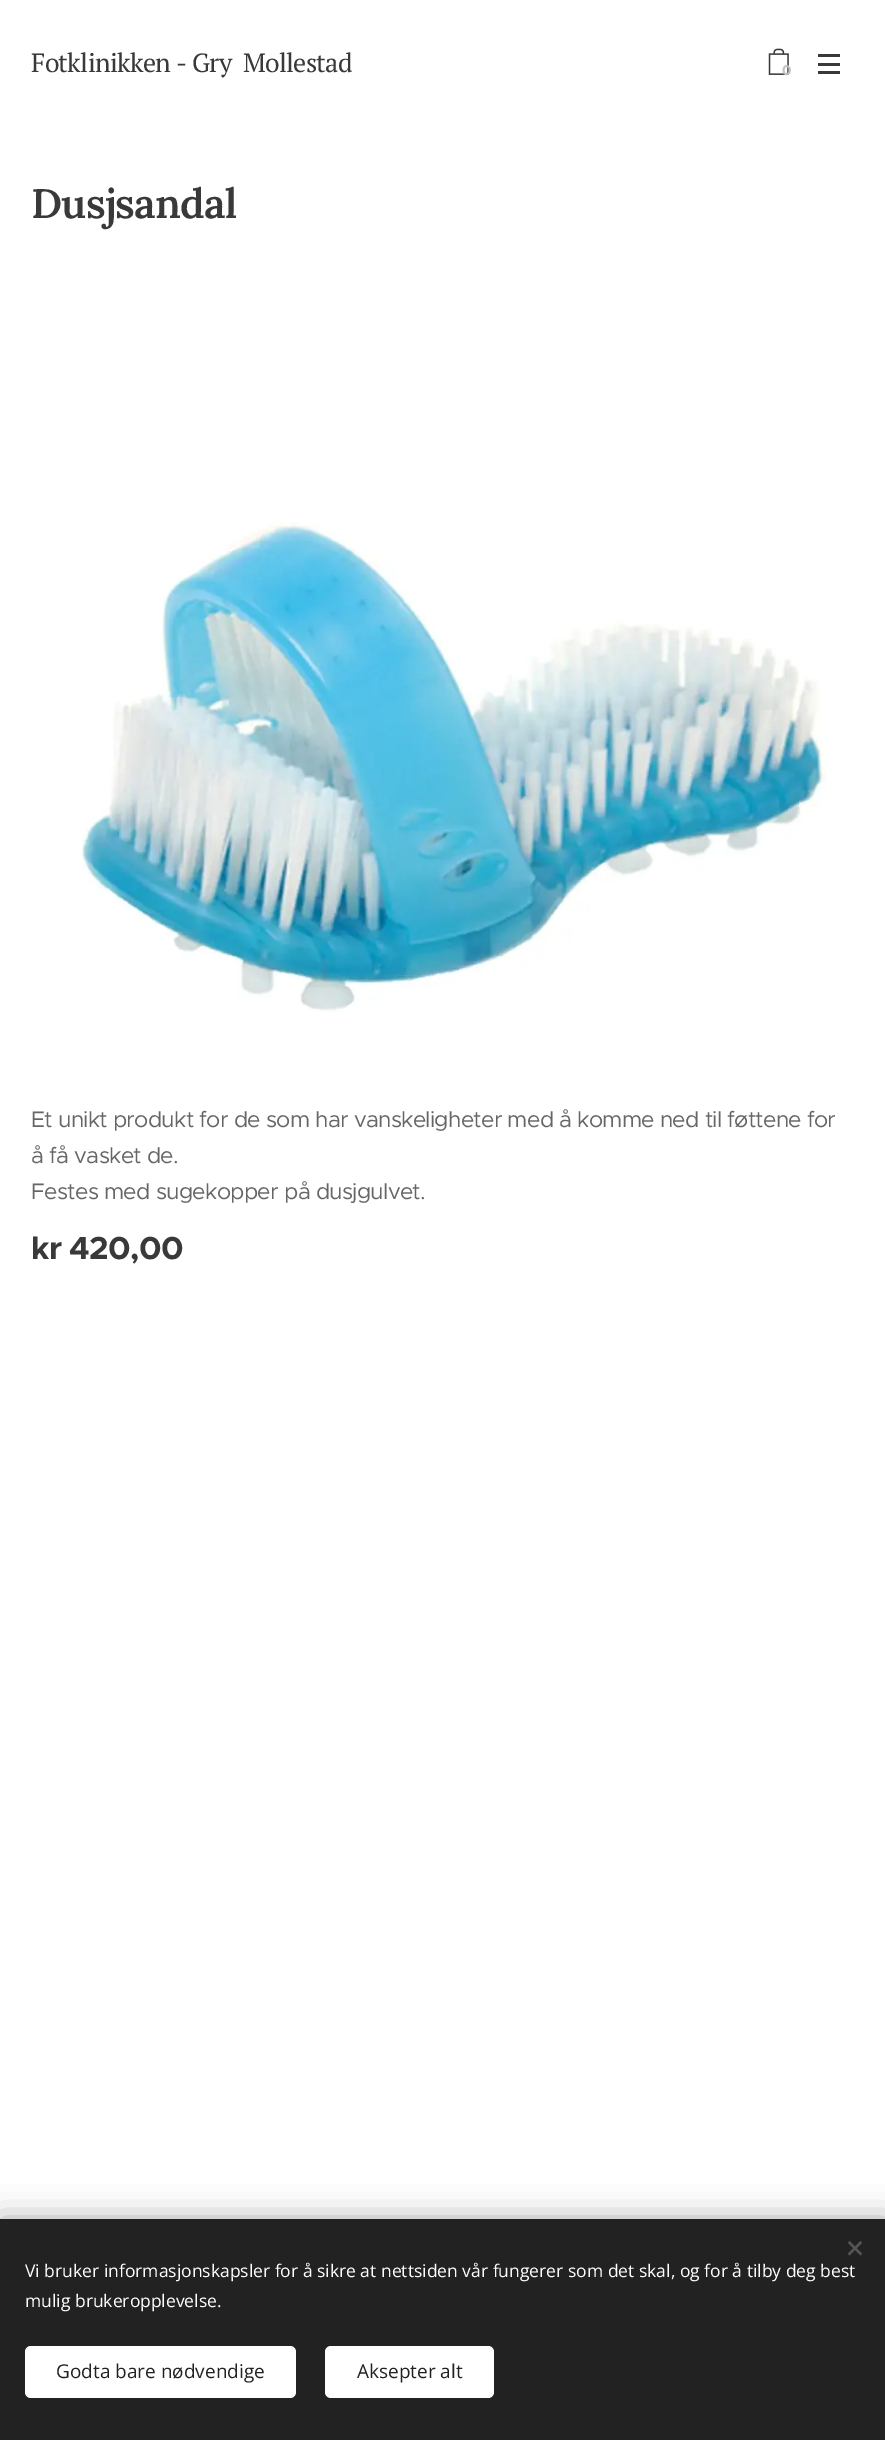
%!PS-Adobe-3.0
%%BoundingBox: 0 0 885 2440
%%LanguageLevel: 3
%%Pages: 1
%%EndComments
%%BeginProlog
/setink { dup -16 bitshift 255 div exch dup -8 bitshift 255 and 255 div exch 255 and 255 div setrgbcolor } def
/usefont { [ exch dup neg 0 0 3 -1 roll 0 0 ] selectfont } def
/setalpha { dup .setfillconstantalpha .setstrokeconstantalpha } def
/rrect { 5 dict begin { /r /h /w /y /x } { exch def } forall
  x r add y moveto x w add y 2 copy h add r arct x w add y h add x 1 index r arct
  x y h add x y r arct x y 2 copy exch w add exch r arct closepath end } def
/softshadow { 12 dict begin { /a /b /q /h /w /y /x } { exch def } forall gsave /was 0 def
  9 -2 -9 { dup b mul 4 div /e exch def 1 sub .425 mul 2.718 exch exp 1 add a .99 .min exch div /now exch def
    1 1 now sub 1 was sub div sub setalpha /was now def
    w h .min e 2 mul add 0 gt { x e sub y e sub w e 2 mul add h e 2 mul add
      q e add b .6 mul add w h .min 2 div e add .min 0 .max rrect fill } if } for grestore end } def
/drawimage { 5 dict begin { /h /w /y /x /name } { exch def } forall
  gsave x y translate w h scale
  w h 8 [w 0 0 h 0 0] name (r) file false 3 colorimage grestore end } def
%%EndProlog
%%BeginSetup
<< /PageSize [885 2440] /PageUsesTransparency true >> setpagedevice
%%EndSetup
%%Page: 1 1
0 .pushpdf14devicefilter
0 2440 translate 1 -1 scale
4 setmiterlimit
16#FFFFFF setink
0 0 885 2440 rectfill
/PTSerif-Regular 26.25 usefont
16#393939 setink
31 72 moveto -0.68 0 (Fotklinikken - Gry  Mollestad) ashow
(img1.raw) 768 48 21 27 drawimage
/Montserrat-Bold 14 usefont
16#C3C3C3 setink
782 75 moveto (0) show
[
    [818 63 22 3 16#393939]
    [818 54 22 3 16#393939]
    [818 71 22 3 16#393939]
] { aload pop setink rectfill } forall
gsave
31 164 205 79 rectclip
/Lora-SemiBold 41.25 usefont
31 218 moveto -0.68 0 (Dusjsandal) ashow
grestore
(img2.raw) 81 522 746 490 drawimage
/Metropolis-Regular 22.5 usefont
16#666666 setink
31 1127 moveto -0.68 0 (Et unikt produkt for de som har vanskeligheter med å komme ned til føttene for) ashow
31 1163 moveto -0.68 0 (å få vasket de.) ashow
31 1199 moveto -0.68 0 (Festes med sugekopper på dusjgulvet.) ashow
/Metropolis-Bold 32 usefont
16#393939 setink
31 1259 moveto -0.68 0 (kr 420,00) ashow
16#000000 setink
0 2219 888 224 0 15.5 0.33 softshadow
16#222222 setink
0 2219 885 221 rectfill
16#555555 setink
848 2253.5 moveto 860.5 2241 lineto 862 2243 lineto 849.5 2255.5 lineto closepath fill
849.5 2241 moveto 862 2253.5 lineto 860.5 2255.5 lineto 848 2243 lineto closepath fill
/OpenSans-Regular 17.5 usefont
16#FFFFFF setink
25 2277 moveto (Vi bruker informasjonskapsler for å sikre at nettsiden vår fungerer som det skal, og for å tilby deg best) show
25 2307 moveto (mulig brukeropplevelse.) show
25 2346 271 52 6 rrect fill
/OpenSans-Regular 19 usefont
16#222222 setink
56 2378 moveto (Godta bare nødvendige) show
16#FFFFFF setink
325 2346 169 52 6 rrect fill
16#222222 setink
357 2378 moveto (Aksepter alt) show
.poppdf14devicefilter showpage
%%EOF
